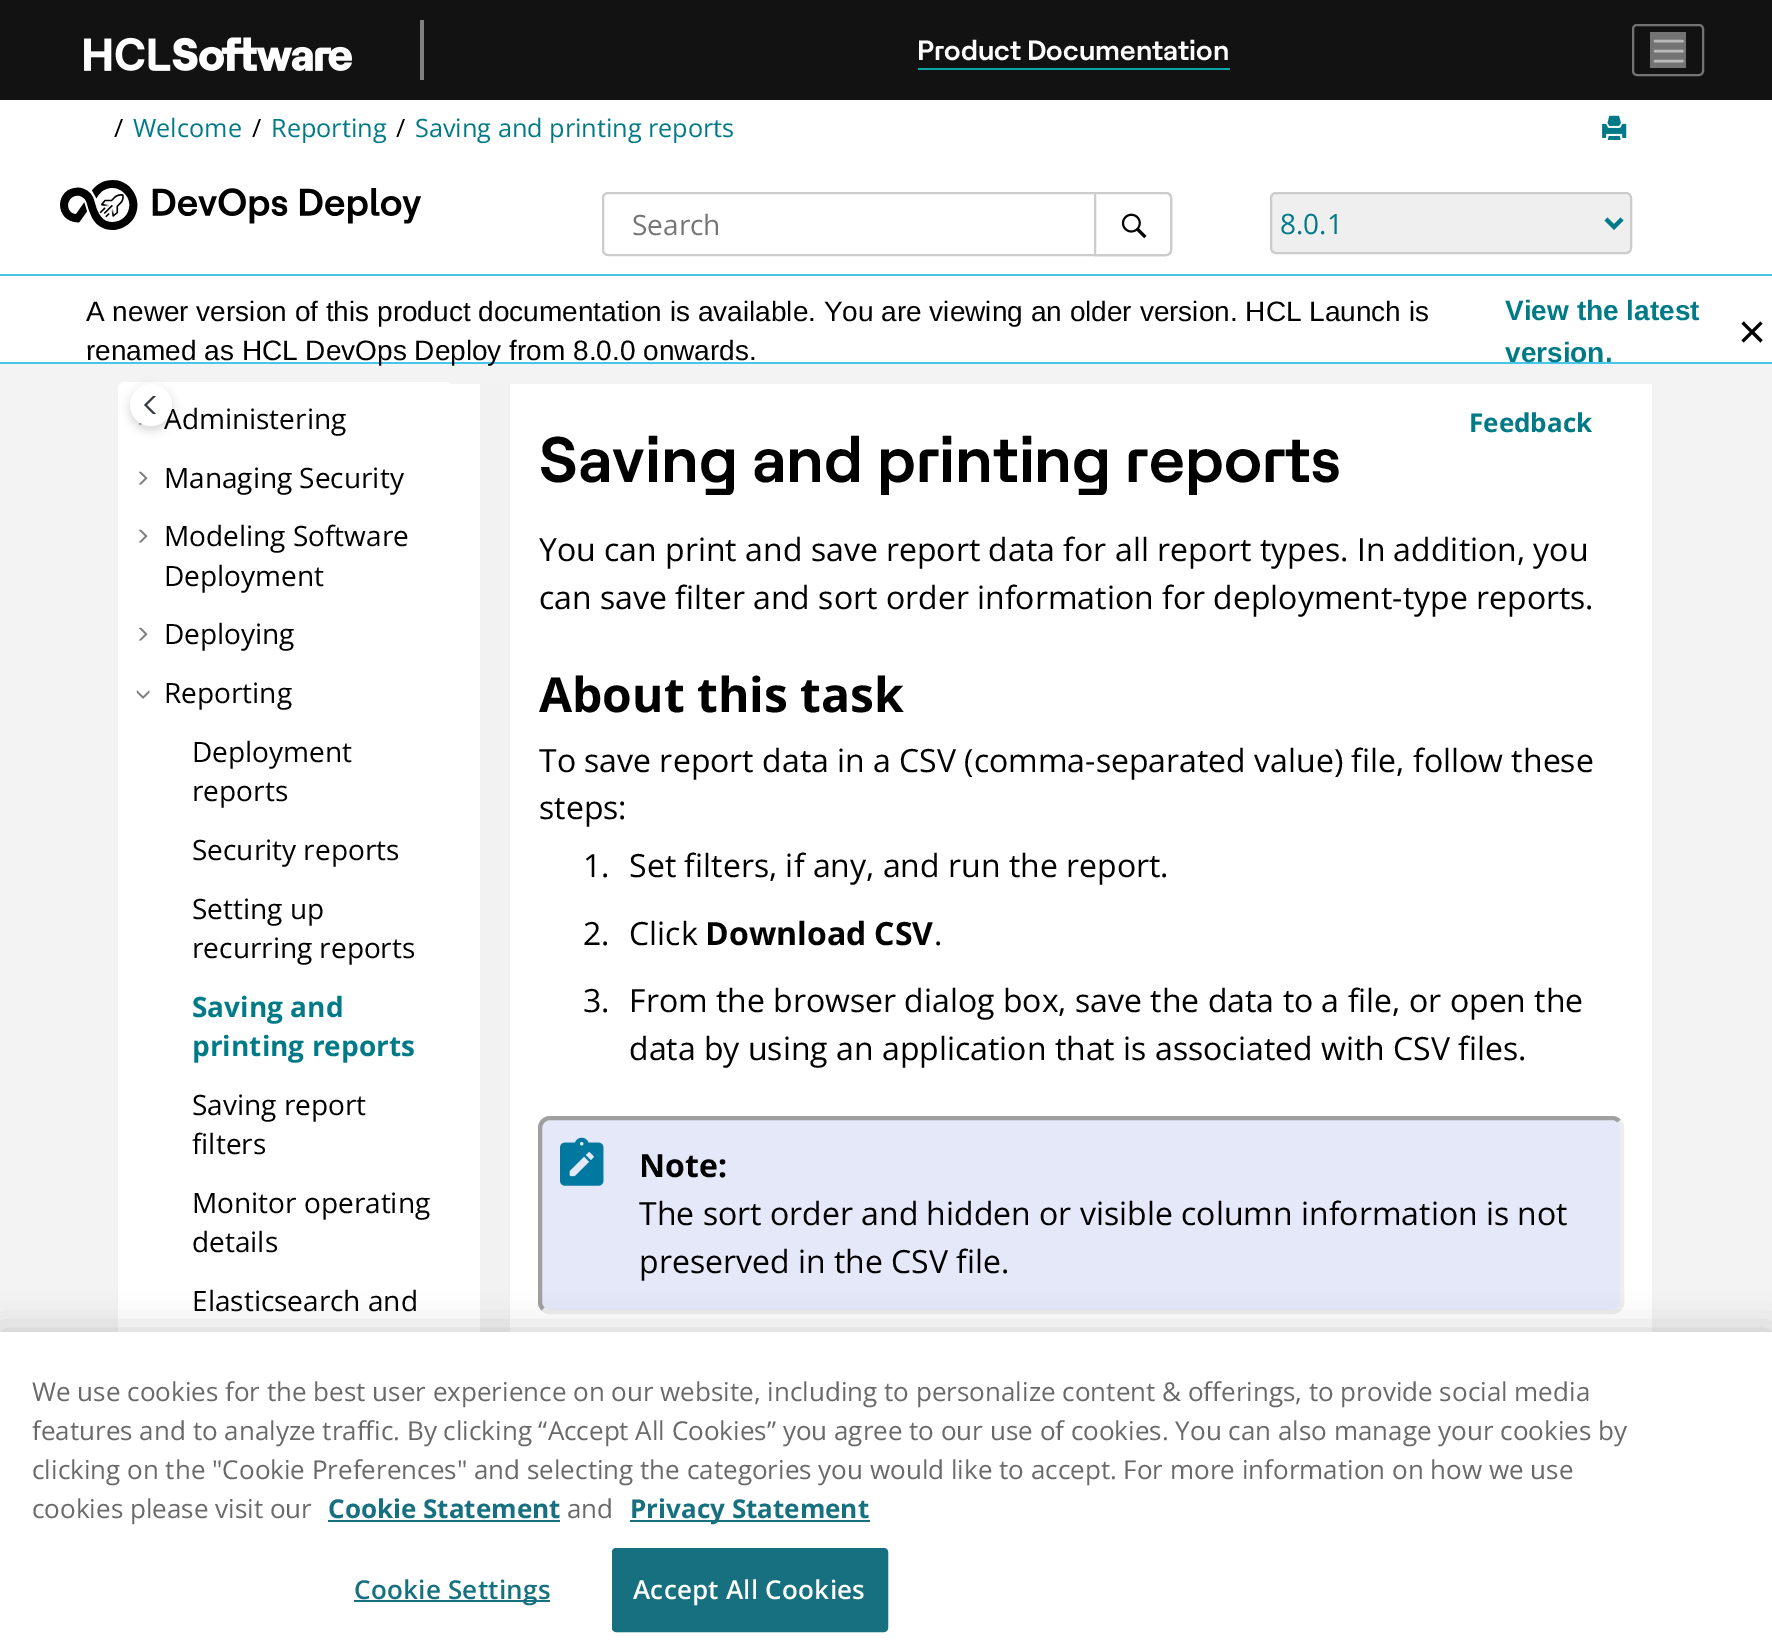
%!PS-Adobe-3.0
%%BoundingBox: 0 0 1772 1651
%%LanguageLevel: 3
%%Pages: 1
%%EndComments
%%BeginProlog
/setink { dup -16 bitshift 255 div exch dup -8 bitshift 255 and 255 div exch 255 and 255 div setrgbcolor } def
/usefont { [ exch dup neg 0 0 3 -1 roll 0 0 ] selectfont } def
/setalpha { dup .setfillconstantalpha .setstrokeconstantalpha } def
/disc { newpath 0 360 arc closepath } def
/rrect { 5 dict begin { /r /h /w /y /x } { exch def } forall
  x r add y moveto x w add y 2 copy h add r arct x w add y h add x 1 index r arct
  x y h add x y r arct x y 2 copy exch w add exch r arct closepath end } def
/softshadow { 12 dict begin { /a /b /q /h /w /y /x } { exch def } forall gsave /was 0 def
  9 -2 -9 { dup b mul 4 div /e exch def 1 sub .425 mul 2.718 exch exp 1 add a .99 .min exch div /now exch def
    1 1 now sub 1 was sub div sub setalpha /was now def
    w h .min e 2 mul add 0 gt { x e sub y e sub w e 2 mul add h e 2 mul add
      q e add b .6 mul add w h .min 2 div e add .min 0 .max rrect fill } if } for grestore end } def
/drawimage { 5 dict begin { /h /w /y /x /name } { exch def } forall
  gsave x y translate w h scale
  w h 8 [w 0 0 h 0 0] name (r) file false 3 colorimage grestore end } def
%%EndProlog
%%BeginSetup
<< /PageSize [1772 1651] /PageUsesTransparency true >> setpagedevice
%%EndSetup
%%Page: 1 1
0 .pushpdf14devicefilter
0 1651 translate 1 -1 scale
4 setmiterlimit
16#FFFFFF setink
0 0 1772 1651 rectfill
16#121212 setink
0 0 1772 100 rectfill
(img1.raw) 84 37 268 34 drawimage
16#808080 setink
420 20 4 60 rectfill
/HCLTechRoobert-Bold 28 usefont
16#FFFFFF setink
917 60 moveto (Product Documentation) show
16#0BA5A8 setink
918 68 312 2 rectfill
16#737373 setink
2 setlinewidth
1633 25 70 50 4 rrect stroke
1650 32 36 36 rectfill
16#B9B9B9 setink
2.5 setlinewidth
1 setlinecap
1655 41 moveto 1682.5 41 lineto 1655 51 moveto 1682.5 51 lineto 1655 61 moveto 1682.5 61 lineto stroke
/OpenSans-Regular 25.25 usefont
16#000000 setink
114 137 moveto (/) show
16#007A87 setink
133 137 moveto (Welcome) show
16#000000 setink
252 137 moveto (/) show
16#007A87 setink
271 137 moveto (Reporting) show
16#000000 setink
396 137 moveto (/) show
16#007A87 setink
415 137 moveto (Saving and printing reports) show
(img2.raw) 1602 115 25 25 drawimage
16#46C7EA setink
0 274 1772 2 rectfill
(img3.raw) 60 180 361 50 drawimage
16#CCCCCC setink
2 setlinewidth
0 setlinecap
603 193 568 62 5 rrect stroke
/OpenSans-Regular 28 usefont
16#757575 setink
632 235 moveto (Search) show
16#FFFFFF setink
1095 193 moveto 1166 193 lineto 1169 193 1171 195 1171 198 curveto 1171 250 lineto 1171 253 1169 255 1166 255 curveto 1095 255 lineto closepath gsave fill grestore
16#CCCCCC setink
stroke
(img4.raw) 1121 213 26 26 drawimage
16#EFEFEF setink
1271 193 360 60 5 rrect gsave fill grestore
16#CCCCCC setink
stroke
16#007A87 setink
4 setlinewidth
1606 219 moveto 1614 227 lineto 1622 219 lineto stroke
1280 234 moveto (8.0.1) show
16#46C7EA setink
0 362 1772 2 rectfill
/LiberationSans-Regular 28 usefont
16#000000 setink
86 321 moveto (A newer version of this product documentation is available. You are viewing an older version. HCL Launch is) show
16#F3F3F3 setink
120 364 1532 20 rectfill
0 364 120 968 rectfill
16#000000 setink
86 360 moveto (renamed as HCL DevOps Deploy from 8.0.0 onwards.) show
/LiberationSans-Bold 28 usefont
16#007A87 setink
1505 320 moveto (View the latest) show
1505 362 moveto (version.) show
/LiberationSans-Regular 48 usefont
16#000000 setink
1738 348 moveto (×) show
16#F3F3F3 setink
1652 364 120 968 rectfill
16#FFFFFF setink
118 382 334 1210 6 rrect fill
(img5.raw) 138 422 4 3 drawimage
/OpenSans-Regular 28 usefont
16#000000 setink
164 429 moveto (Administering) show
(img6.raw) 138 471 10 14 drawimage
164 488 moveto (Managing Security) show
(img6.raw) 138 529 10 14 drawimage
164 546 moveto (Modeling Software) show
164 586 moveto (Deployment) show
(img6.raw) 138 627 10 14 drawimage
164 644 moveto (Deploying) show
(img7.raw) 136 690 14 9 drawimage
[
    [(Reporting) 164 703]
    [(Deployment) 192 762]
    [(reports) 192 801]
    [(Security reports) 192 860]
    [(Setting up) 192 919]
    [(recurring reports) 192 958]
] { aload pop moveto show } forall
/OpenSans-Bold 28 usefont
16#007A87 setink
192 1017 moveto (Saving and) show
192 1056 moveto (printing reports) show
/OpenSans-Regular 28 usefont
16#000000 setink
[
    [(Saving report) 192 1115]
    [(filters) 192 1154]
    [(Monitor operating) 192 1213]
    [(details) 192 1252]
    [(Elasticsearch and) 192 1311]
] { aload pop moveto show } forall
16#F2F2F2 setink
480 384 30 948 rectfill
16#000000 setink
130 388 42 42 21 5 0.16 softshadow
16#FFFFFF setink
151 405 21 disc fill
gsave
144 396 14 18 rectclip
16#343A40 setink
2 setlinewidth
157 393.5 moveto 168.5 405 lineto 157 416.5 lineto 145.5 405 lineto closepath stroke
grestore
/OpenSans-Bold 26 usefont
16#007A87 setink
1469 432 moveto (Feedback) show
/HCLTechRoobert-Bold 64.4 usefont
16#000000 setink
539 482 moveto (Saving and printing reports) show
/OpenSans-Regular 32 usefont
539 561 moveto (You can print and save report data for all report types. In addition, you) show
539 609 moveto (can save filter and sort order information for deployment-type reports.) show
/OpenSans-Bold 48 usefont
539 712 moveto (About this task) show
/OpenSans-Regular 32 usefont
[
    [(To save report data in a CSV \(comma-separated value\) file, follow these) 539 772]
    [(steps:) 539 819]
    [(1.) 583 877]
    [(Set filters, if any, and run the report.) 629 877]
    [(2.) 583 945]
    [(Click) 629 945]
] { aload pop moveto show } forall
/OpenSans-Bold 32 usefont
705 945 moveto (Download CSV) show
/OpenSans-Regular 32 usefont
[
    [(.) 934 945]
    [(3.) 583 1012]
    [(From the browser dialog box, save the data to a file, or open the) 629 1012]
    [(data by using an application that is associated with CSV files.) 629 1060]
] { aload pop moveto show } forall
16#E5E8F9 setink
538 1116 1086 198 12 rrect fill
(img8.raw) 560 1137 44 49 drawimage
16#EEEEEE setink
1619 1121 moveto 1621 1123 1622 1125.5 1622 1128 curveto 1622 1302 lineto 1622 1304.5 1621 1307 1619 1309 curveto 1617 1311 1614.5 1312 1612 1312 curveto 550 1312 lineto 547.5 1312 545 1311 543 1309 curveto stroke
16#9F9F9F setink
543 1309 moveto 541 1307 540 1304.5 540 1302 curveto 540 1128 lineto 540 1125.5 541 1123 543 1121 curveto 545 1119 547.5 1118 550 1118 curveto 1612 1118 lineto 1614.5 1118 1617 1119 1619 1121 curveto stroke
/OpenSans-Bold 32 usefont
16#000000 setink
639 1177 moveto (Note:) show
/OpenSans-Regular 32 usefont
639 1225 moveto (The sort order and hidden or visible column information is not) show
639 1273 moveto (preserved in the CSV file.) show
0 1332 1772 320 0 18 0.2 softshadow
16#FFFFFF setink
0 1332 1772 319 rectfill
/OpenSans-Regular 26.02 usefont
16#696969 setink
[
    [(We use cookies for the best user experience on our website, including to personalize content & offerings, to provide social media) 32 1401]
    [(features and to analyze traffic. By clicking “Accept All Cookies” you agree to our use of cookies. You can also manage your cookies by) 32 1440]
    [(clicking on the "Cookie Preferences" and selecting the categories you would like to accept. For more information on how we use) 32 1479]
    [(cookies please visit our) 32 1518]
] { aload pop moveto show } forall
/OpenSans-Bold 26.02 usefont
16#17707F setink
328 1518 moveto (Cookie Statement) show
328 1520 232 2 rectfill
/OpenSans-Regular 26.02 usefont
16#696969 setink
567 1518 moveto (and) show
16#17707F setink
630 1520 240 2 rectfill
/OpenSans-Bold 26.02 usefont
630 1518 moveto (Privacy Statement) show
354 1600 196 2 rectfill
/OpenSans-SemiBold 26.02 usefont
354 1599 moveto 0.25 0 (Cookie Settings) ashow
613 1549 274 82 3 rrect gsave fill grestore
2 setlinewidth
stroke
16#FFFFFF setink
633 1599 moveto 0.25 0 (Accept All Cookies) ashow
.poppdf14devicefilter showpage
%%EOF
